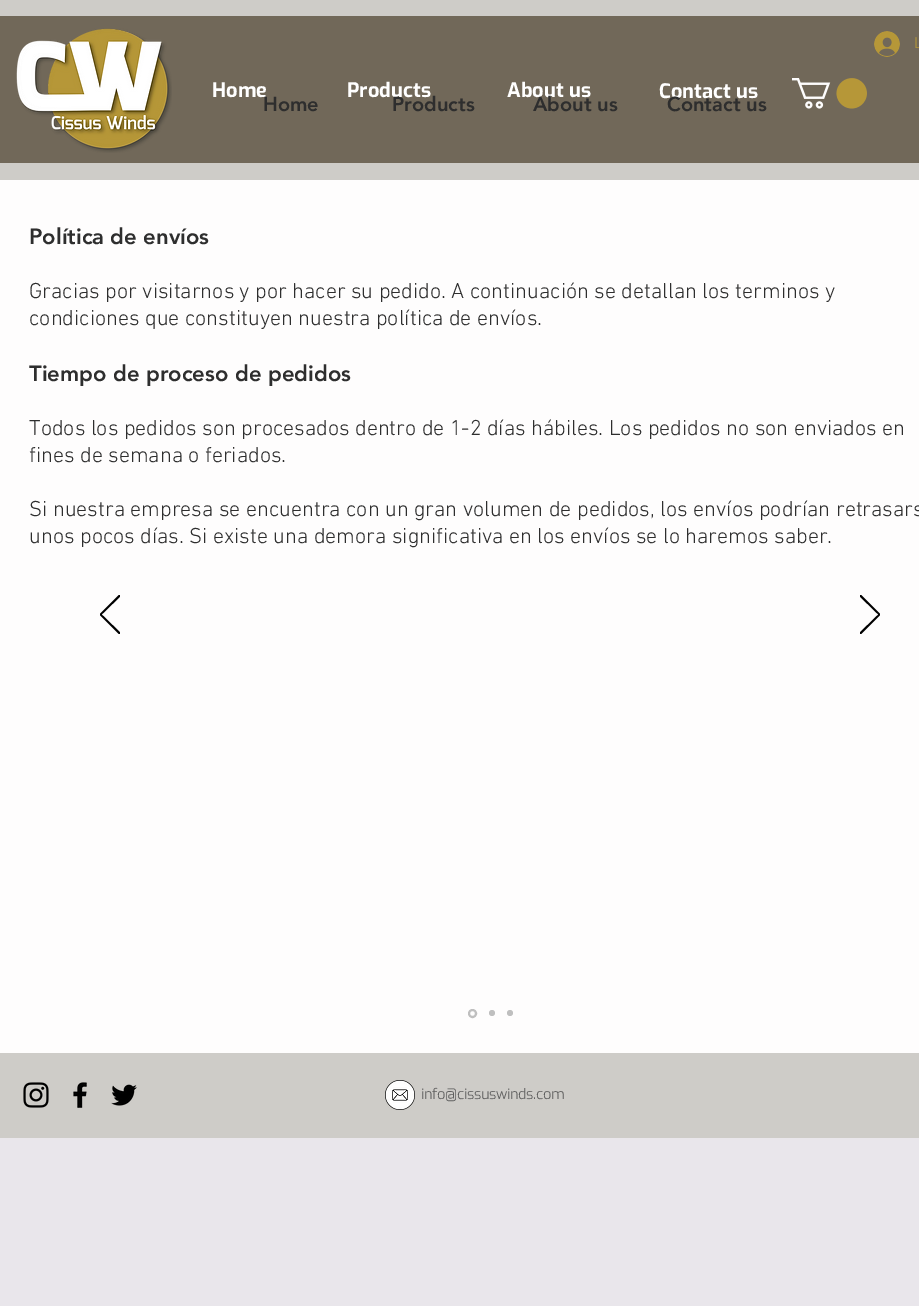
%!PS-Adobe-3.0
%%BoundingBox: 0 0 919 1306
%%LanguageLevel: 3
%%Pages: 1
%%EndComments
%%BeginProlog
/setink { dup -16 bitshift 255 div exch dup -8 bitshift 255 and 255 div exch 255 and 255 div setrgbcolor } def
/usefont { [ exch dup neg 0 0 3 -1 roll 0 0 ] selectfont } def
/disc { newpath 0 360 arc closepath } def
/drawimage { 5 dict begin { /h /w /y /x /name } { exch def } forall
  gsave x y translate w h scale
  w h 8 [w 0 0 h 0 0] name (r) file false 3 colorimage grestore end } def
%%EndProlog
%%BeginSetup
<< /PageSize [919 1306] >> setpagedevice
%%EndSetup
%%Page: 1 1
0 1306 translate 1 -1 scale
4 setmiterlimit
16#E9E6EB setink
0 0 919 1306 rectfill
16#CECCC8 setink
0 0 919 180 rectfill
16#716859 setink
0 16 919 147 rectfill
(img1.raw) 16 28 156 125 drawimage
(img2.raw) 874 31 26 26 drawimage
/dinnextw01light-Light 16 usefont
16#B69738 setink
914 48 moveto (L) show
/Exo-Bold 20 usefont
16#FFFFFF setink
[
    [(Home) 212 97]
    [(Products) 347 97]
    [(About us) 507 97]
    [(Contact us) 659 98]
] { aload pop moveto show } forall
(img3.raw) 792 78 75 31 drawimage
/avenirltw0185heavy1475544-Black 20 usefont
16#2E2E2E setink
[
    [(Home) 263 111]
    [(Products) 392 111]
    [(About us) 533 111]
    [(Contact us) 667 111]
] { aload pop moveto show } forall
16#FEFDFD setink
0 180 919 873 rectfill
/avenirltw0185heavy1475544-Black 22 usefont
16#2E2E2E setink
29 244 moveto (Política de envíos) show
/dinnextw01light-Light 22 usefont
29 298 moveto (Gracias por visitarnos y por hacer su pedido. A continuación se detallan los terminos y) show
29 325 moveto (condiciones que constituyen nuestra política de envíos.) show
/avenirltw0185heavy1475544-Black 22 usefont
29 381 moveto (Tiempo de proceso de pedidos) show
/dinnextw01light-Light 22 usefont
[
    [(Todos los pedidos son procesados dentro de 1-2 días hábiles. Los pedidos no son enviados en) 29 435]
    [(fines de semana o feriados.) 29 462]
    [(Si nuestra empresa se encuentra con un gran volumen de pedidos, los envíos podrían retrasars) 29 516]
    [(unos pocos días. Si existe una demora significativa en los envíos se lo haremos saber.) 29 543]
] { aload pop moveto show } forall
gsave
100 595 20 39 rectclip
16#000000 setink
119.5 634 moveto 100 614.5 lineto 119.5 595 lineto 120 596 lineto 101 614.5 lineto 120 633 lineto closepath stroke
grestore
gsave
860 595 20 39 rectclip
16#000000 setink
860.5 634 moveto 880 614.5 lineto 860.5 595 lineto 860 596 lineto 879 614.5 lineto 860 633 lineto closepath stroke
grestore
16#BFBFBF setink
2 setlinewidth
472.5 1013.5 3.5 disc stroke
492 1013 3 disc fill
510 1013 3 disc fill
16#CECCC8 setink
0 1053 919 85 rectfill
(img4.raw) 23 1082 26 26 drawimage
(img5.raw) 73 1082 14 26 drawimage
(img6.raw) 111 1084 26 22 drawimage
(img7.raw) 385 1080 30 30 drawimage
/Exo2-Bold 14 usefont
16#5F5F5F setink
421 1099 moveto (info@cissuswinds.com) show
showpage
%%EOF
